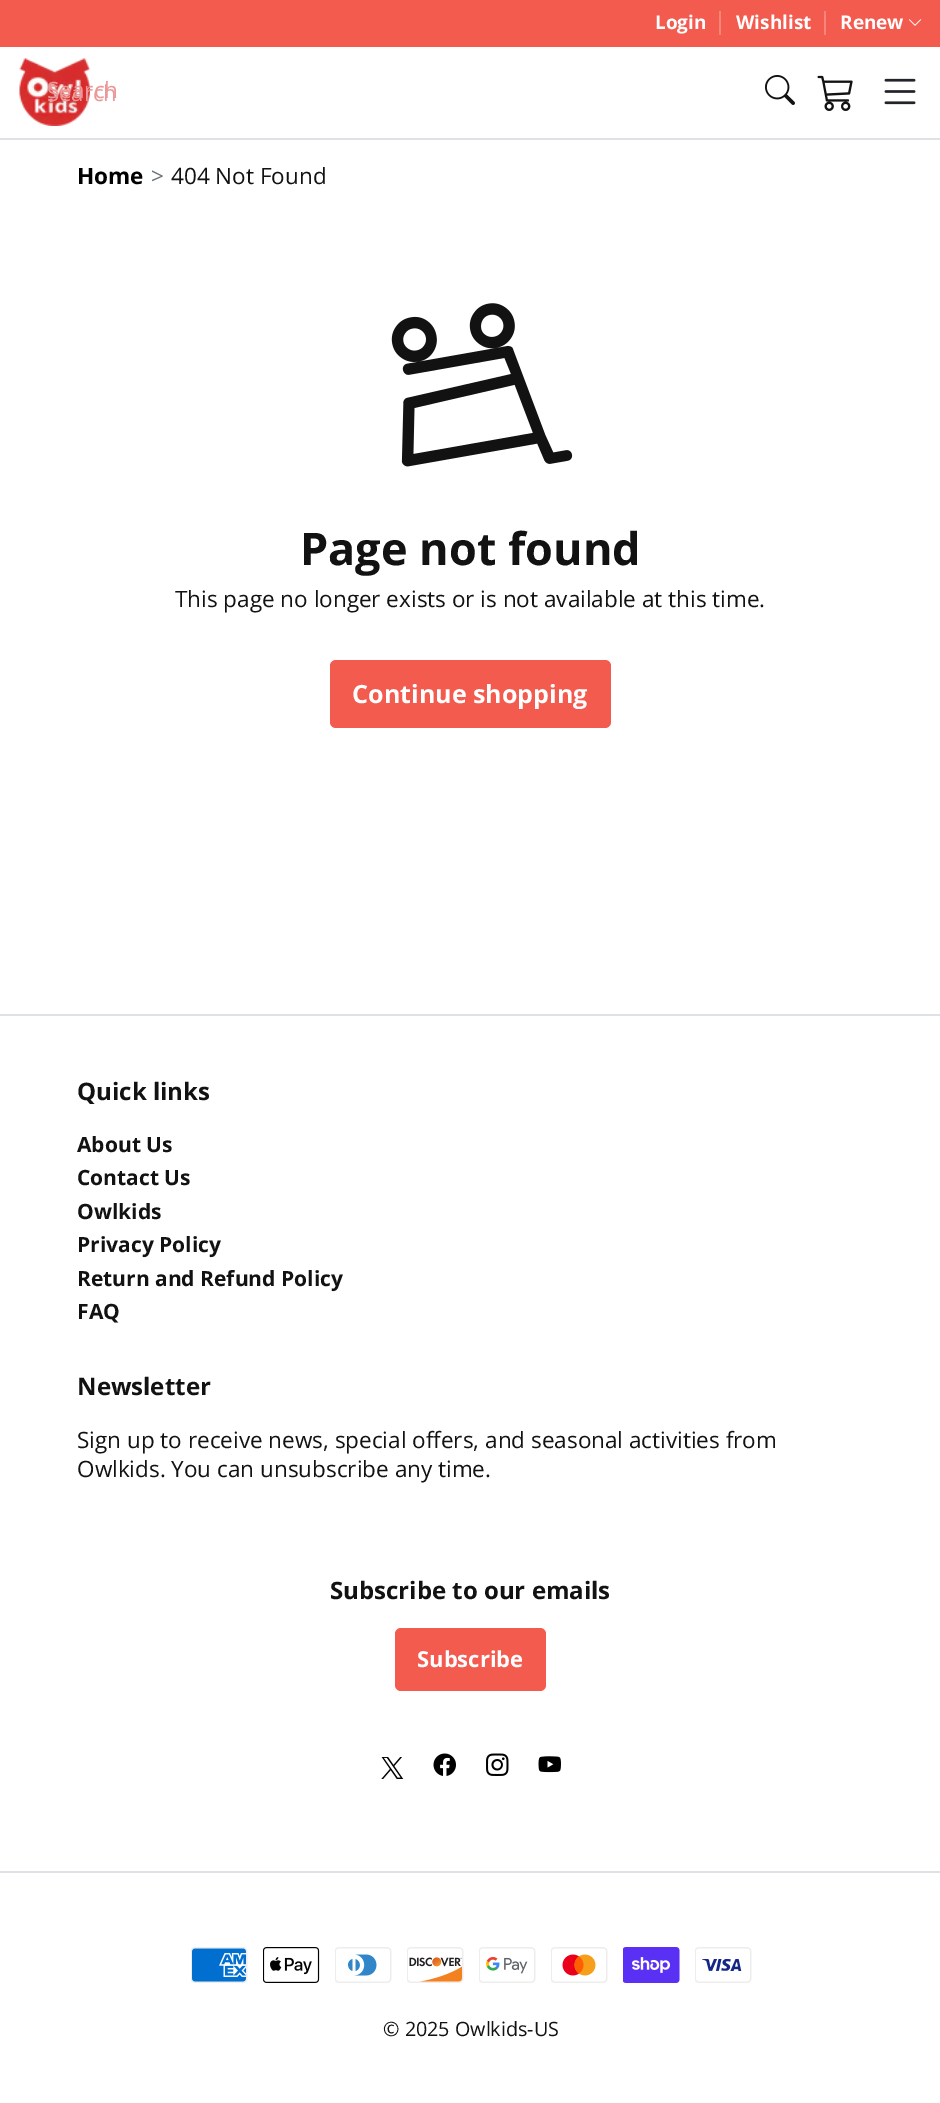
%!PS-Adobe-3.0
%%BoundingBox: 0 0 940 2103
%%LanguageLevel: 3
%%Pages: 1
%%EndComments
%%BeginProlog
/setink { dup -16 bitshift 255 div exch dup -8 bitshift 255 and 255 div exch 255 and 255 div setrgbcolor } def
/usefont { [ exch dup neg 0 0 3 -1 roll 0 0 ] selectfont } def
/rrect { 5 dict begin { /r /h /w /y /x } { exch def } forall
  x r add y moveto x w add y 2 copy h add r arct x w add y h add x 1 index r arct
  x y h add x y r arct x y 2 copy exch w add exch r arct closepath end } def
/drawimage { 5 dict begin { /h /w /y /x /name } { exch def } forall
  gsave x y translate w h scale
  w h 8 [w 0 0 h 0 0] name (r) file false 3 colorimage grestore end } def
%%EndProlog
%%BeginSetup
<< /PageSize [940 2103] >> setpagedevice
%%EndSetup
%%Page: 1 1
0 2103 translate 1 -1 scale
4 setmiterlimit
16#FFFFFF setink
0 0 940 2103 rectfill
16#F45B4F setink
0 0 940 47 rectfill
/OpenSans-Bold 19 usefont
16#FFFFFF setink
655 29 moveto (Login) show
16#F7847B setink
719 11 2 24 rectfill
16#FFFFFF setink
736 29 moveto (Wishlist) show
16#F7847B setink
824 11 2 24 rectfill
16#FFFFFF setink
840 29 moveto (Renew) show
(img1.raw) 908 19 14 7 drawimage
16#DEE2E6 setink
0 138 940 2 rectfill
(img2.raw) 19 58 71 68 drawimage
(img3.raw) 884 78 32 27 drawimage
/OpenSans-Regular 22 usefont
16#EA9898 setink
47 101 moveto (Search) show
/OpenSans-Regular 22.5 usefont
47 98 moveto (Search) show
(img4.raw) 765 75 30 30 drawimage
(img5.raw) 817 75 36 36 drawimage
/OpenSans-Bold 22.5 usefont
16#000000 setink
77 184 moveto (Home) show
/OpenSans-Regular 22.5 usefont
16#6C757D setink
151 184 moveto (>) show
16#121212 setink
171 184 moveto (404 Not Found) show
(img6.raw) 391 303 182 164 drawimage
/OpenSans-Bold 45 usefont
300 565 moveto (Page not found) show
/OpenSans-Regular 22.5 usefont
175 607 moveto (This page no longer exists or is not available at this time.) show
16#F45B4F setink
330 660 281 68 6 rrect fill
/OpenSans-Bold 25.1 usefont
16#FFFFFF setink
352 703 moveto (Continue shopping) show
16#DEE2E6 setink
0 1014 940 2 rectfill
/OpenSans-Bold 24 usefont
16#121212 setink
77 1100 moveto (Quick links) show
/OpenSans-Bold 21 usefont
[
    [(About Us) 77 1152]
    [(Contact Us) 77 1185]
    [(Owlkids) 77 1219]
    [(Privacy Policy) 77 1252]
    [(Return and Refund Policy) 77 1286]
    [(FAQ) 77 1319]
] { aload pop moveto show } forall
/OpenSans-Bold 24 usefont
77 1395 moveto (Newsletter) show
/OpenSans-Regular 22.5 usefont
77 1448 moveto (Sign up to receive news, special offers, and seasonal activities from) show
77 1477 moveto (Owlkids. You can unsubscribe any time.) show
/OpenSans-Bold 24 usefont
330 1599 moveto (Subscribe to our emails) show
16#F45B4F setink
395 1628 151 63 6 rrect fill
/OpenSans-Bold 22 usefont
16#FFFFFF setink
417 1667 moveto (Subscribe) show
(img7.raw) 381 1757 23 22 drawimage
(img8.raw) 433 1753 23 23 drawimage
(img9.raw) 486 1753 23 23 drawimage
(img10.raw) 538 1756 23 17 drawimage
16#DEE2E6 setink
0 1871 940 2 rectfill
(img11.raw) 191 1947 57 36 drawimage
(img12.raw) 263 1947 57 36 drawimage
(img13.raw) 335 1947 57 36 drawimage
(img14.raw) 407 1947 57 36 drawimage
(img15.raw) 479 1947 57 36 drawimage
(img16.raw) 551 1947 57 36 drawimage
(img17.raw) 623 1947 57 36 drawimage
(img18.raw) 695 1947 57 36 drawimage
/OpenSans-Regular 19.75 usefont
16#121212 setink
383 2036 moveto (© 2025 Owlkids-US) show
showpage
%%EOF
